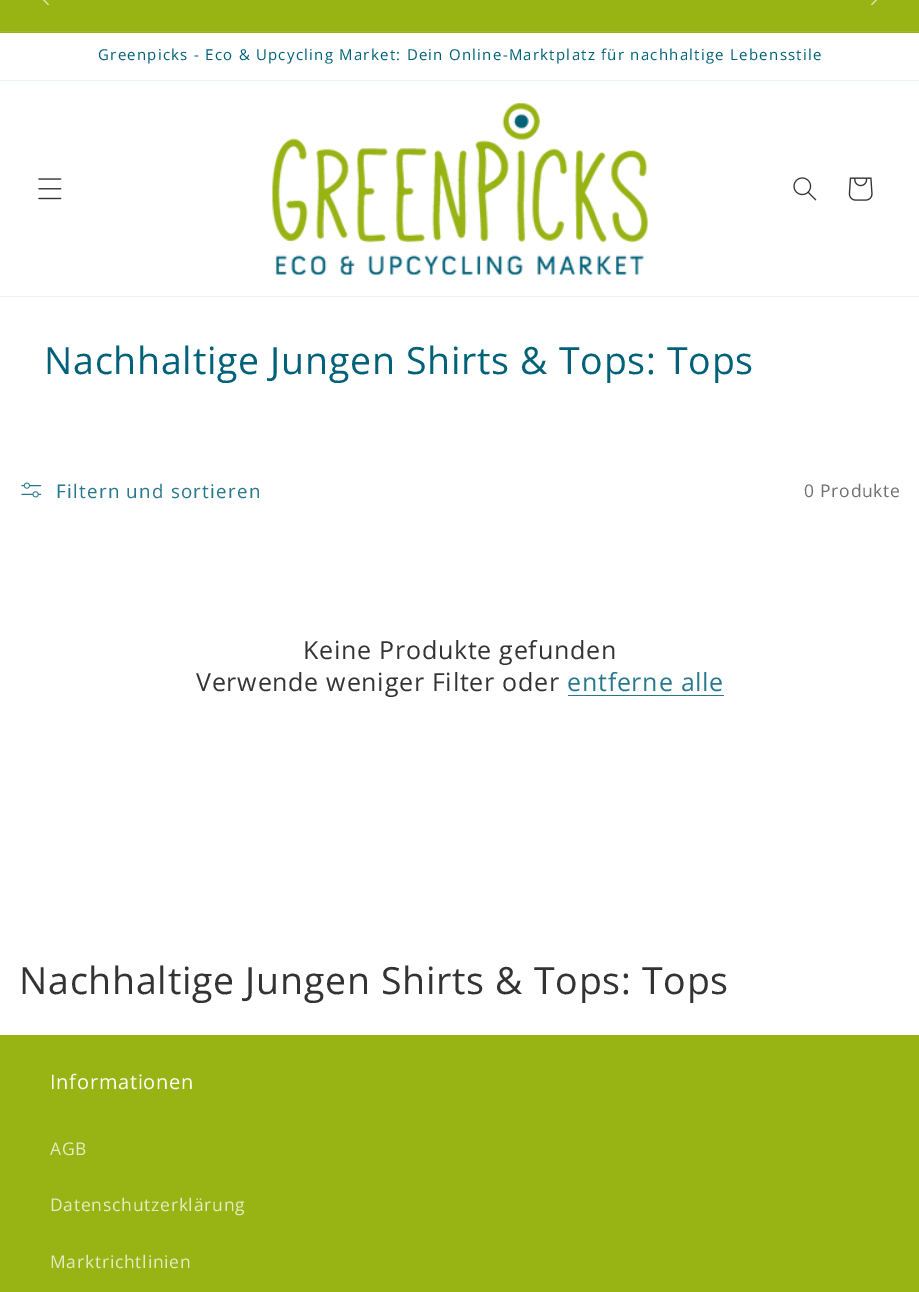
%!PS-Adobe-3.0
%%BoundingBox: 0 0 919 1292
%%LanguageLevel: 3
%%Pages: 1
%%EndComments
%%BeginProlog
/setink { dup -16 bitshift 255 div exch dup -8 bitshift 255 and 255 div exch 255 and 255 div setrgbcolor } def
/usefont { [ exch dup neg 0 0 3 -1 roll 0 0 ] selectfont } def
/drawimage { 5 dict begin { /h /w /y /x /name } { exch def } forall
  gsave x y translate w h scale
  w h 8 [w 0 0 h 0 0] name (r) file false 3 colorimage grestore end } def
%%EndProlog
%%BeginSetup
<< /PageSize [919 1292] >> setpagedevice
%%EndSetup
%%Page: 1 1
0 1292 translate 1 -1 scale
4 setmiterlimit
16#FFFFFF setink
0 0 919 1292 rectfill
16#97B314 setink
0 0 919 33 rectfill
16#9FB927 setink
0 31 919 1 rectfill
(img1.raw) 43 0 6 5 drawimage
(img2.raw) 871 0 6 5 drawimage
16#EBF2F4 setink
0 80 919 1 rectfill
/OpenSans-Regular 15 usefont
16#006178 setink
98 60 moveto 1.25 0 (Greenpicks - Eco & Upcycling Market: Dein Online-Marktplatz für nachhaltige Lebensstile) ashow
16#EFEFEF setink
0 296 919 1 rectfill
(img3.raw) 38 178 24 22 drawimage
(img4.raw) 272 103 376 172 drawimage
(img5.raw) 793 177 24 24 drawimage
(img6.raw) 848 177 25 24 drawimage
/OpenSans-Regular 37.5 usefont
16#006178 setink
44 374 moveto 0.75 0 (Nachhaltige Jungen Shirts & Tops: Tops) ashow
(img7.raw) 21 482 21 16 drawimage
/OpenSans-Regular 18.75 usefont
16#26798C setink
56 498 moveto 1.25 0 (Filtern und sortieren) ashow
/OpenSans-Regular 17.5 usefont
16#707070 setink
804 497 moveto 0.75 0 (0 Produkte) ashow
/OpenSans-Regular 25 usefont
16#333333 setink
303 659 moveto 0.75 0 (Keine Produkte gefunden) ashow
196 691 moveto 0.75 0 (Verwende weniger Filter oder) ashow
16#26798C setink
567 691 moveto 0.75 0 (entferne alle) ashow
568 695 156 1 rectfill
/OpenSans-Regular 37.5 usefont
16#333333 setink
19 994 moveto 0.75 0 (Nachhaltige Jungen Shirts & Tops: Tops) ashow
16#97B314 setink
0 1035 919 257 rectfill
/OpenSans-Regular 20 usefont
16#FFFFFF setink
50 1089 moveto 0.75 0 (Informationen) ashow
/OpenSans-Regular 17.5 usefont
16#E5ECC4 setink
50 1155 moveto 0.75 0 (AGB) ashow
50 1211 moveto 0.75 0 (Datenschutzerklärung) ashow
50 1268 moveto 0.75 0 (Marktrichtlinien) ashow
showpage
%%EOF
